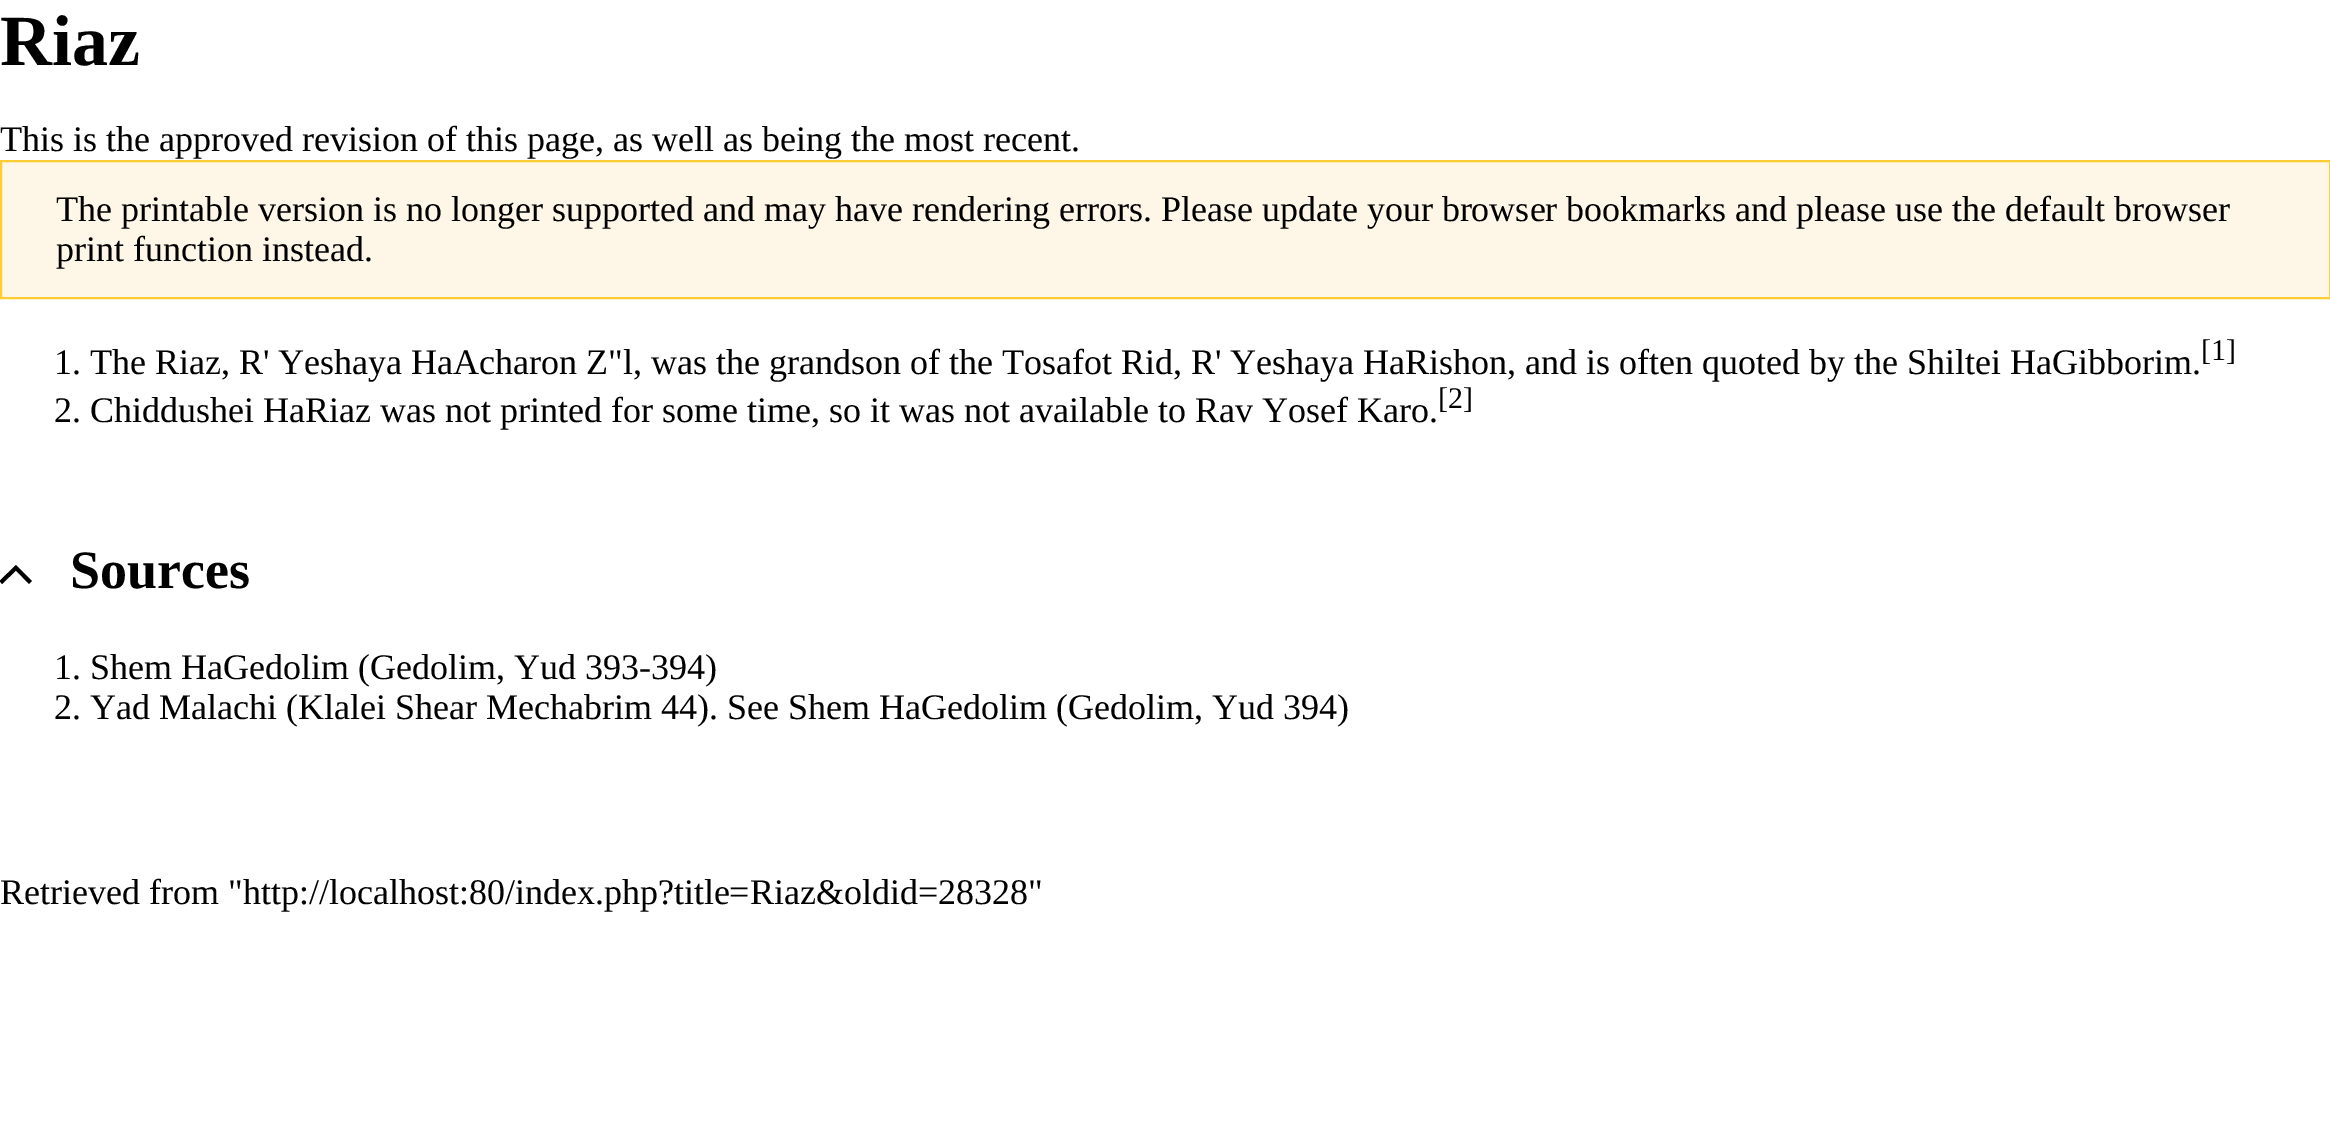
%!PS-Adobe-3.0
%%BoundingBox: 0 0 2330 1130
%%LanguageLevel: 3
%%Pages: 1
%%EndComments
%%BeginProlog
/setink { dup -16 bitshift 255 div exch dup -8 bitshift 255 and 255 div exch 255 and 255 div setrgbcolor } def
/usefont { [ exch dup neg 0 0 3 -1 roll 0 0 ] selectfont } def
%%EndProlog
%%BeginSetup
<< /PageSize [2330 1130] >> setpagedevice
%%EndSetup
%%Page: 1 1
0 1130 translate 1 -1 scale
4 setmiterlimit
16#FFFFFF setink
0 0 2330 1130 rectfill
/LiberationSerif-Bold 72 usefont
16#000000 setink
0 65 moveto (Riaz) show
/LiberationSerif-Regular 36 usefont
0 151 moveto (This is the approved revision of this page, as well as being the most recent.) show
16#FEF6E7 setink
1 161 moveto 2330 161 lineto 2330 298 lineto 1 298 lineto closepath gsave fill grestore
16#FFCC33 setink
2 setlinewidth
stroke
16#000000 setink
[
    [(The printable version is no longer supported and may have rendering errors. Please update your browser bookmarks and please use the default browser) 56 221]
    [(print function instead.) 56 261]
    [(1. The Riaz, R' Yeshaya HaAcharon Z"l, was the grandson of the Tosafot Rid, R' Yeshaya HaRishon, and is often quoted by the Shiltei HaGibborim.) 54 374]
] { aload pop moveto show } forall
/LiberationSerif-Regular 30 usefont
2201 360 moveto ([1]) show
/LiberationSerif-Regular 36 usefont
54 422 moveto (2. Chiddushei HaRiaz was not printed for some time, so it was not available to Rav Yosef Karo.) show
/LiberationSerif-Regular 30 usefont
1438 408 moveto ([2]) show
29 584 moveto 16 570.5 lineto 2 584 lineto -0.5 581 lineto 16 565 lineto 32 581 lineto closepath fill
/LiberationSerif-Bold 54 usefont
70 588 moveto (Sources) show
/LiberationSerif-Regular 36 usefont
[
    [(1. Shem HaGedolim \(Gedolim, Yud 393-394\)) 54 679]
    [(2. Yad Malachi \(Klalei Shear Mechabrim 44\). See Shem HaGedolim \(Gedolim, Yud 394\)) 54 719]
    [(Retrieved from "http://localhost:80/index.php?title=Riaz&oldid=28328") 0 904]
] { aload pop moveto show } forall
showpage
%%EOF
